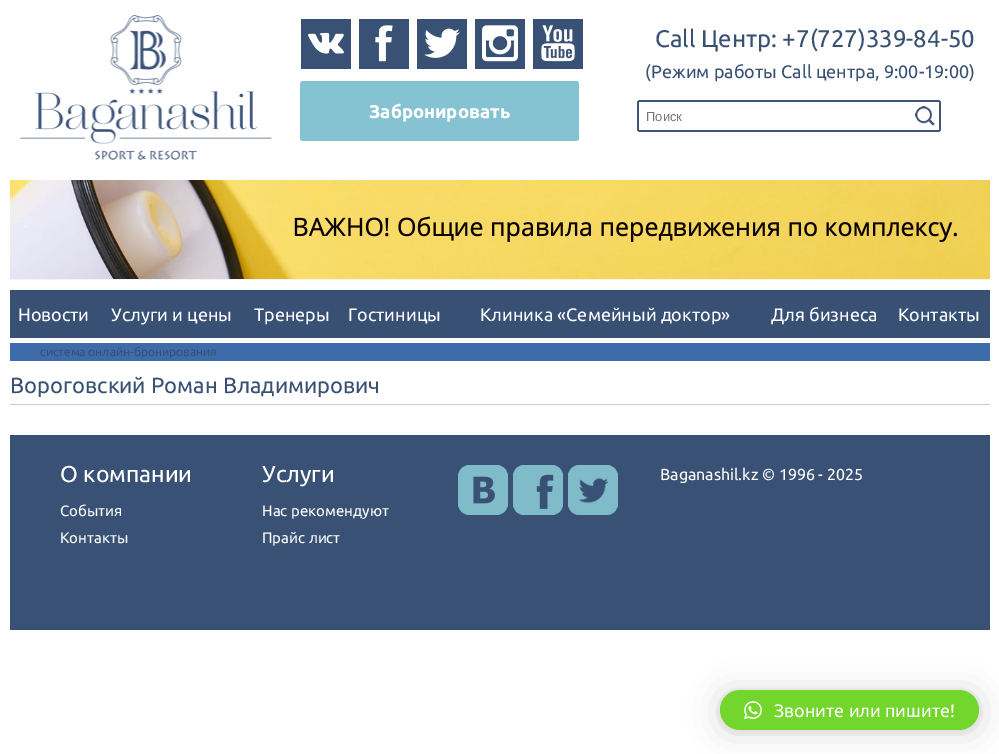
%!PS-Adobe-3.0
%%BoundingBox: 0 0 999 754
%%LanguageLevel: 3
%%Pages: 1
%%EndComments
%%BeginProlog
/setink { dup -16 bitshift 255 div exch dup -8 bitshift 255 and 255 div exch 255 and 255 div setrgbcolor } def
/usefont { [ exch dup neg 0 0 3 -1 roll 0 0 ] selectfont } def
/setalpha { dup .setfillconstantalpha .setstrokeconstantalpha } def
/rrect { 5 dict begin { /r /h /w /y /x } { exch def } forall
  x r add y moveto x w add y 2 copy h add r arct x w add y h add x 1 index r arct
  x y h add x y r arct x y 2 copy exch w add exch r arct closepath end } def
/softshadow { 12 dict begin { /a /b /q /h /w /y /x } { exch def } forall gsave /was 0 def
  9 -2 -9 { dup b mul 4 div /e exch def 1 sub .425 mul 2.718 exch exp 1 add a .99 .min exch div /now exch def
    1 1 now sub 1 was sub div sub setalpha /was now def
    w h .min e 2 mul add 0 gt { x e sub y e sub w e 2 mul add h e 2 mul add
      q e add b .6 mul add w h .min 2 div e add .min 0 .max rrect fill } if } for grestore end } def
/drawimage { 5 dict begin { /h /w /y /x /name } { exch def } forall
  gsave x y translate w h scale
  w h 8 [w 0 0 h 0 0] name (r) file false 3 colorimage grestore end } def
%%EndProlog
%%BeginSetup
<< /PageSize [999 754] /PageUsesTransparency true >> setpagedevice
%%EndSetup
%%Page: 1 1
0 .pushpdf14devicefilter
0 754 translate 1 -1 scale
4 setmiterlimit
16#FFFFFF setink
0 0 999 754 rectfill
(img1.raw) 20 15 252 145 drawimage
16#385174 setink
301 19 50 50 rectfill
(img2.raw) 308 32 36 22 drawimage
359 19 50 50 rectfill
(img3.raw) 375 25 18 37 drawimage
417 19 50 50 rectfill
(img4.raw) 424 28 36 30 drawimage
475 19 50 50 rectfill
(img5.raw) 482 25 36 37 drawimage
533 19 50 50 rectfill
(img6.raw) 541 25 34 37 drawimage
16#85C3D2 setink
300 81 279 60 3 rrect fill
/Ubuntu-Bold 18.5 usefont
16#FFFFFF setink
369 118 moveto (Забронировать) show
/Ubuntu-Regular 24 usefont
16#385074 setink
655 47 moveto (Call Центр: +7\(727\)339-84-50) show
/Ubuntu-Regular 18 usefont
645 78 moveto (\(Режим работы Call центра, 9:00-19:00\)) show
(img7.raw) 637 100 304 32 drawimage
/LiberationSans-Regular 13 usefont
16#757575 setink
646 121 moveto (Поиск) show
(img8.raw) 10 180 980 100 drawimage
16#385074 setink
10 290 980 48 rectfill
/Ubuntu-Regular 18 usefont
16#FFFFFF setink
[
    [(Новости) 18 321]
    [(Услуги и цены) 111 321]
    [(Тренеры) 254 321]
    [(Гостиницы) 348 321]
    [(Клиника «Семейный доктор») 480 321]
    [(Для бизнеса) 771 321]
    [(Контакты) 898 321]
] { aload pop moveto show } forall
16#3E6CAB setink
10 343 980 18 rectfill
/Ubuntu-Regular 12 usefont
16#385074 setink
40 356 moveto (система онлайн-бронирования) show
16#CCCCCC setink
10 404 980 1 rectfill
/Ubuntu-Regular 22 usefont
16#385074 setink
10 393 moveto (Вороговский Роман Владимирович) show
16#385174 setink
10 435 980 195 rectfill
/Ubuntu-Regular 23 usefont
16#FFFFFF setink
60 482 moveto (О компании) show
/Ubuntu-Regular 15 usefont
60 516 moveto (События) show
60 543 moveto (Контакты) show
/Ubuntu-Regular 23 usefont
262 482 moveto (Услуги) show
/Ubuntu-Regular 15 usefont
262 516 moveto (Нас рекомендуют) show
262 543 moveto (Прайс лист) show
(img9.raw) 458 465 50 50 drawimage
(img10.raw) 513 465 50 50 drawimage
(img11.raw) 568 465 50 50 drawimage
/Ubuntu-Regular 16 usefont
660 480 moveto (Baganashil.kz © 1996 - 2025) show
16#000000 setink
720 692 259 40 20 16 0.16 softshadow
720 691 259 40 20 3 0.06 softshadow
16#73D62C setink
720 690 259 40 20 rrect fill
(img12.raw) 744 701 18 19 drawimage
/Ubuntu-Regular 18 usefont
16#FFFFFF setink
774 717 moveto (Звоните или пишите!) show
.poppdf14devicefilter showpage
%%EOF
